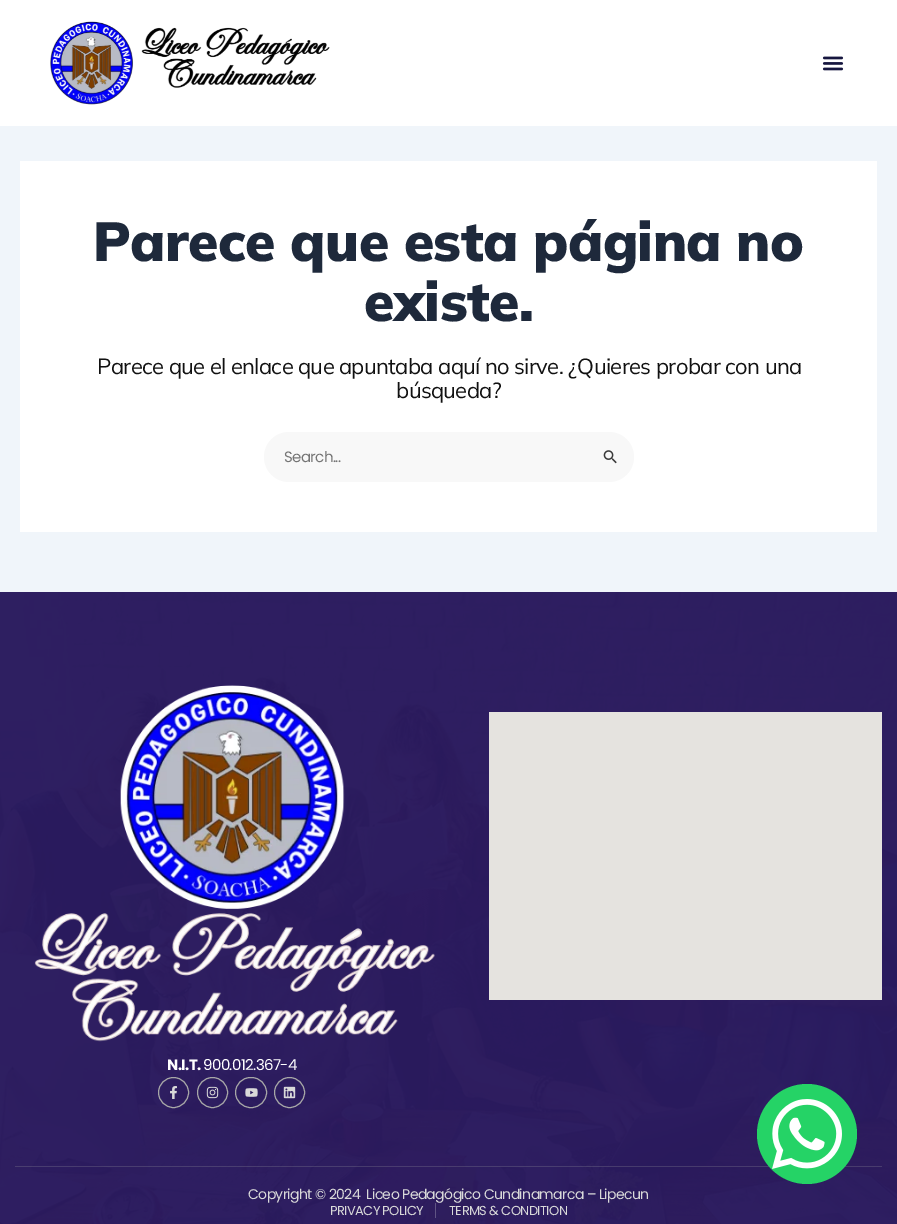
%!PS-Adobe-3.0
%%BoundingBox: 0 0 897 1224
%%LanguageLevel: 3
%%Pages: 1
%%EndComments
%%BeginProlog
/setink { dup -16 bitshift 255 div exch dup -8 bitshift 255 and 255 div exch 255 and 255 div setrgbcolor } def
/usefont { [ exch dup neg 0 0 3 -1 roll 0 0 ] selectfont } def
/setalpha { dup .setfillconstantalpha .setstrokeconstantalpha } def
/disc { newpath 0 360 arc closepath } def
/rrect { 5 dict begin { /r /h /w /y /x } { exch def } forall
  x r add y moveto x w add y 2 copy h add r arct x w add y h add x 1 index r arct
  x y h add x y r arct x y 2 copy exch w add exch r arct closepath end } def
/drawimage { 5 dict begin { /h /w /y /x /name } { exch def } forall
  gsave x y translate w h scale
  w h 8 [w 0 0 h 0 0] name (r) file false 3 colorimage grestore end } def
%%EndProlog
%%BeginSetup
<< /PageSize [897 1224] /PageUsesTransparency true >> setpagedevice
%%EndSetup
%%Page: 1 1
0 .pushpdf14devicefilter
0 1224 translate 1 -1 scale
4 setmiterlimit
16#F0F5FA setink
0 0 897 1224 rectfill
16#FFFFFF setink
0 0 897 126 rectfill
(img1.raw) 50 21 280 84 drawimage
(img2.raw) 822 56 22 15 drawimage
20 161 857 371 rectfill
/Mulish-Black 55 usefont
16#1E293B setink
93 261 moveto -0.6 0 (Parece que esta página no) ashow
364 321 moveto -0.6 0 (existe.) ashow
/Mulish-Regular 21.9 usefont
16#111111 setink
97 374 moveto -0.6 0 (Parece que el enlace que apuntaba aquí no sirve. ¿Quieres probar con una) ashow
396 398 moveto -0.6 0 (búsqueda?) ashow
16#F8F8F8 setink
264 432 370 50 25 rrect fill
/Poppins-Regular 15 usefont
16#757575 setink
284 462 moveto -0.6 0 (Search...) ashow
(img3.raw) 603 450 14 14 drawimage
(img4.raw) 0 592 897 632 drawimage
0.23 setalpha
16#A7A7A7 setink
15 1166 867 1 rectfill
1 setalpha
16#E5E3DF setink
489 712 393 288 rectfill
(img5.raw) 34 685 401 357 drawimage
/Poppins-Bold 15 usefont
16#FFFFFF setink
167 1070 moveto -0.6 0 (N.I.T.) ashow
/Poppins-Regular 15 usefont
203 1070 moveto -0.6 0 (900.012.367-4) ashow
16#A7A7A7 setink
173.5 1092.5 15 disc stroke
(img6.raw) 170 1086 7 13 drawimage
212.5 1092.5 15 disc stroke
(img7.raw) 206 1086 13 13 drawimage
235.5 1077.5 31 30 15 rrect stroke
(img8.raw) 245 1088 13 9 drawimage
289.5 1092.5 15 disc stroke
(img9.raw) 283 1086 13 13 drawimage
16#25D366 setink
807 1134 50 disc fill
(img10.raw) 772 1099 70 70 drawimage
/Poppins-Regular 14 usefont
16#D9D9D9 setink
248 1199 moveto -0.6 0 (Copyright © 2024  Liceo Pedagógico Cundinamarca – Lipecun) ashow
/Poppins-Regular 13 usefont
330 1215 moveto -0.6 0 (PRIVACY POLICY) ashow
16#605484 setink
435 1203 1 15 rectfill
16#D9D9D9 setink
449 1215 moveto -0.6 0 (TERMS & CONDITION) ashow
.poppdf14devicefilter showpage
%%EOF
